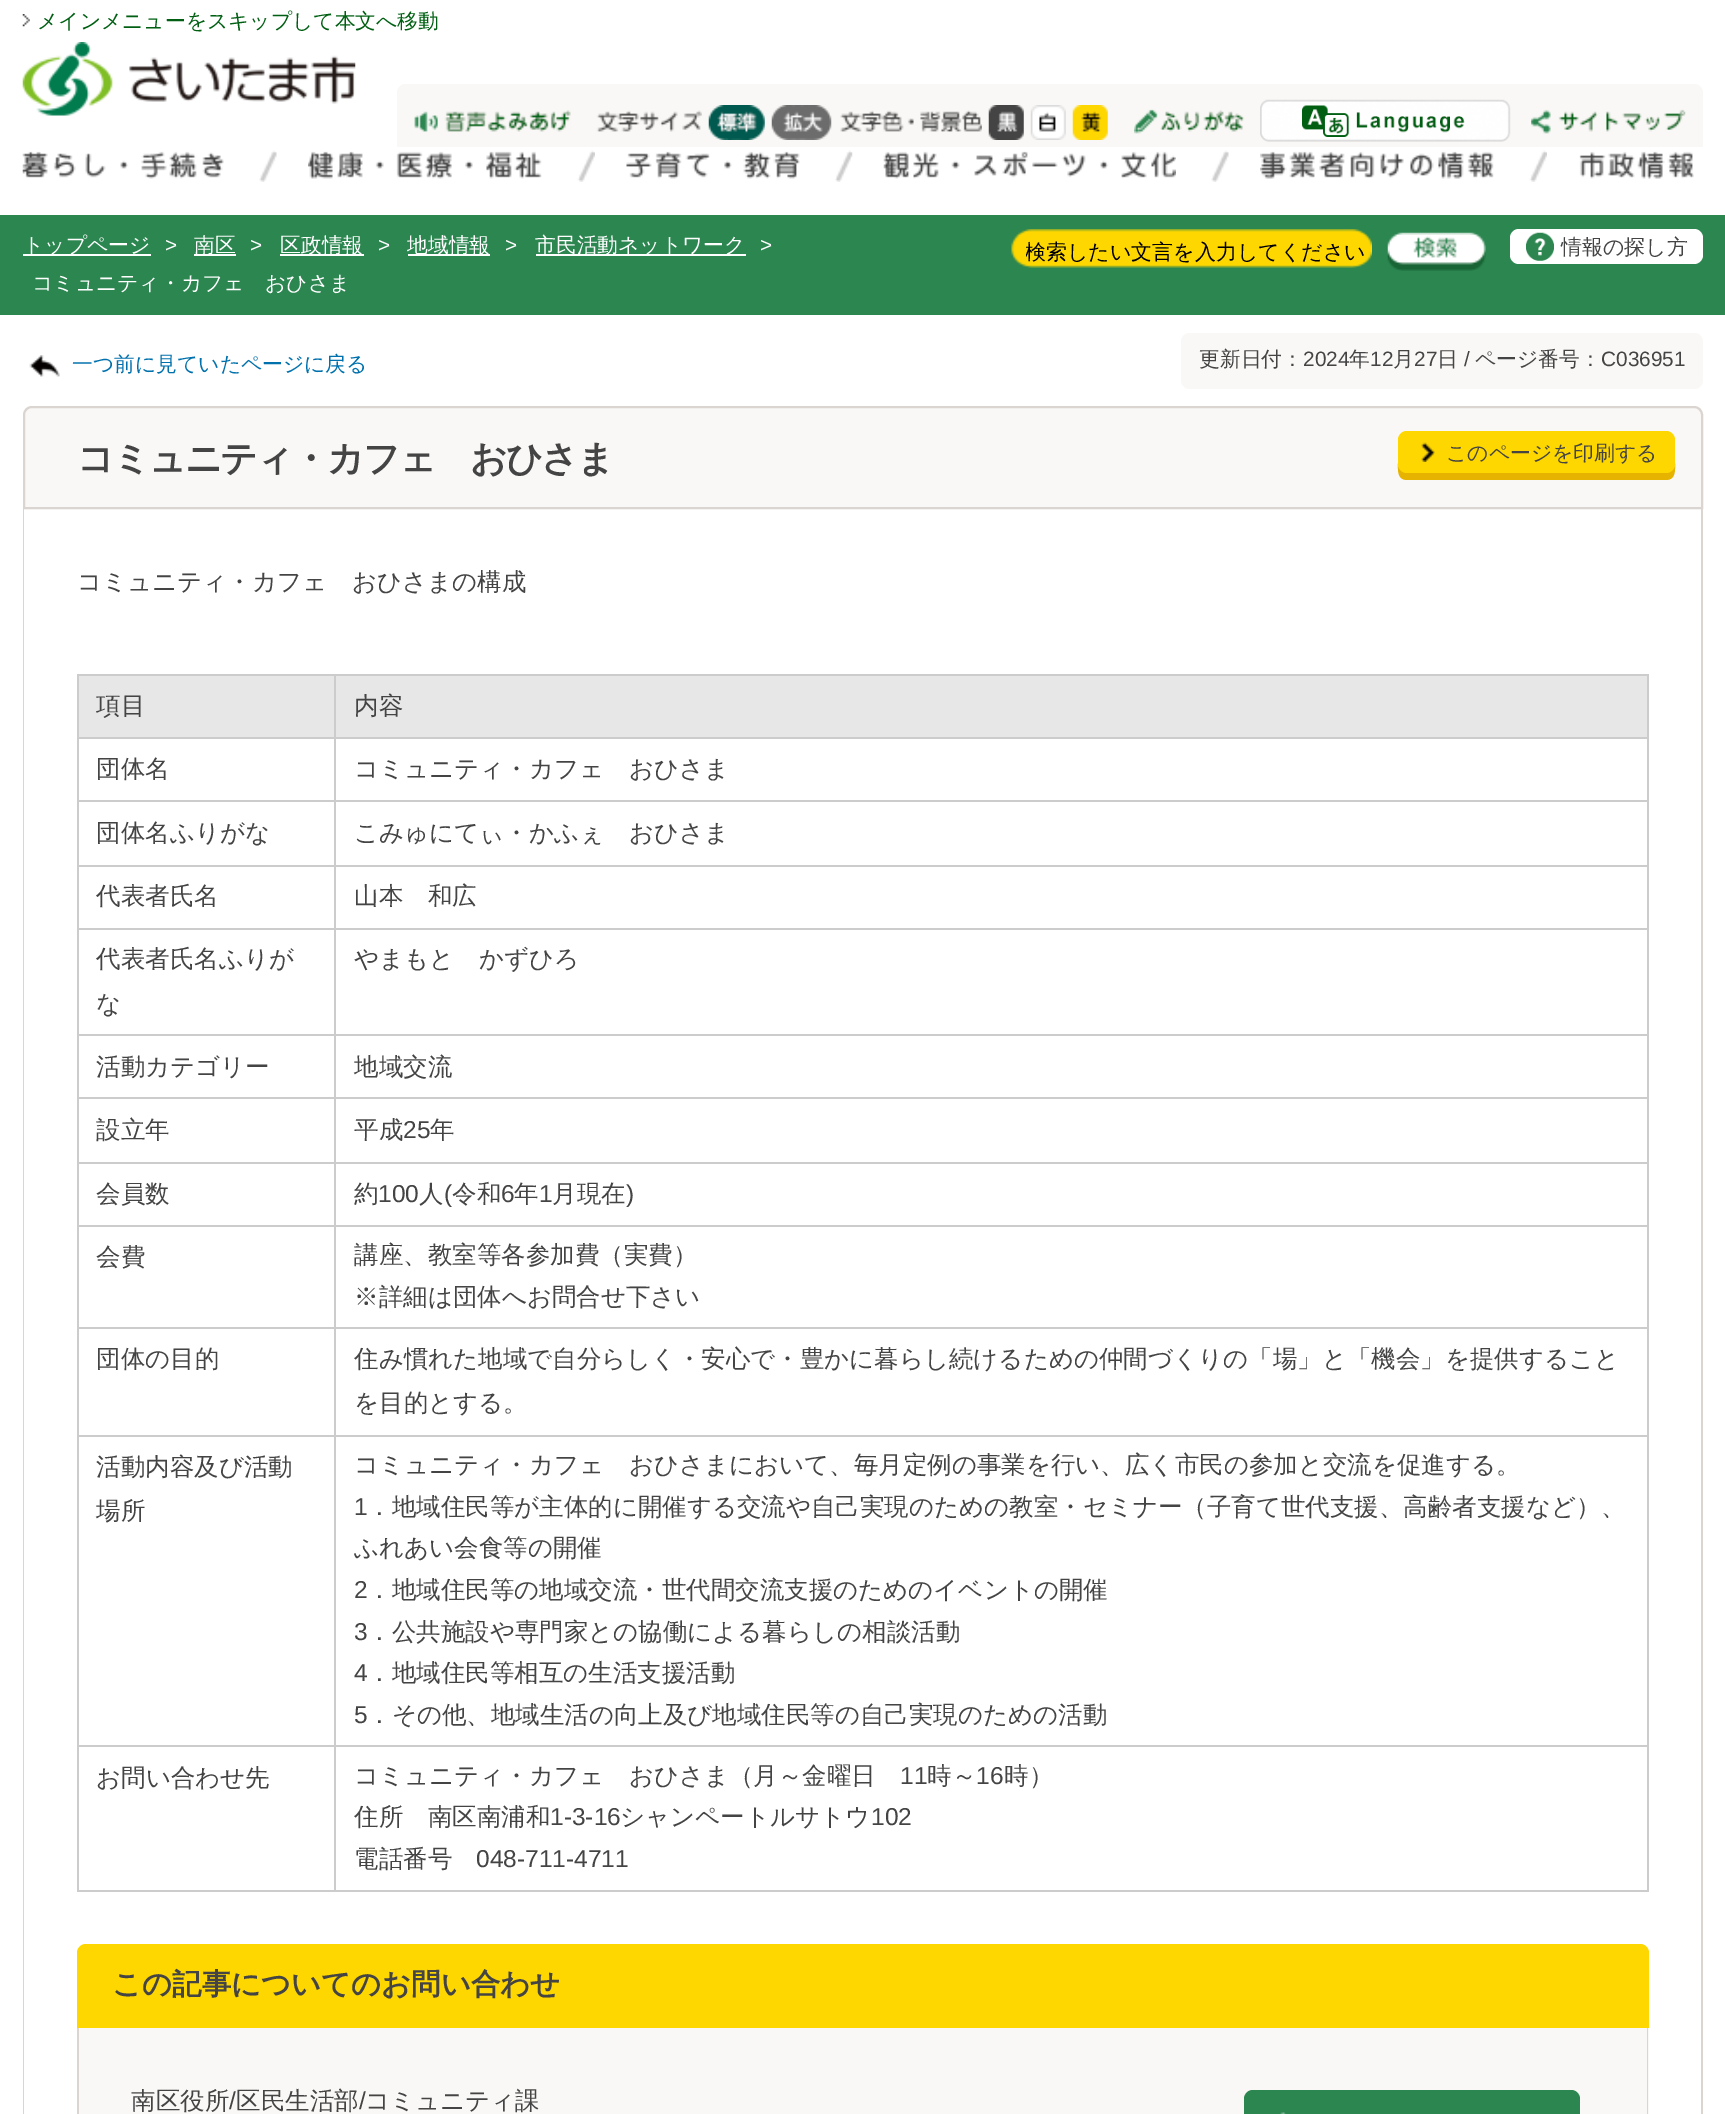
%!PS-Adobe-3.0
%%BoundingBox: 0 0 1725 2114
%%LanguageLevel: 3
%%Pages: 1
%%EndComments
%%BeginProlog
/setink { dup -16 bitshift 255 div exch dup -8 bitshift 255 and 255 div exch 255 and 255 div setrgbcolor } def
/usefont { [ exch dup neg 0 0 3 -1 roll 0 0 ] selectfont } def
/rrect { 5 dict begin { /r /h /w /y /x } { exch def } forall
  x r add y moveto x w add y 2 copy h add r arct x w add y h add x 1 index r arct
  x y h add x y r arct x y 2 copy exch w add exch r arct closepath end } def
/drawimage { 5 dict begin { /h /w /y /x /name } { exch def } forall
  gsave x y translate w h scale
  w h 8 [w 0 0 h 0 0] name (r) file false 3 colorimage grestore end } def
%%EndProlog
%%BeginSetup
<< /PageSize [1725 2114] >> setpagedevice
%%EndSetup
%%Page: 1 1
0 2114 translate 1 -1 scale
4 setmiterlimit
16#FFFFFF setink
0 0 1725 2114 rectfill
(img1.raw) 22 14 8 13 drawimage
/WenQuanYiZenHei-Medium 20.8 usefont
16#005F12 setink
37 28 moveto (メインメニューをスキップして本文へ移動) show
(img2.raw) 22 42 334 74 drawimage
16#FAF8F6 setink
397 84 1306 75 9 rrect fill
(img3.raw) 414 110 157 22 drawimage
(img4.raw) 596 110 106 22 drawimage
(img5.raw) 708 105 57 35 drawimage
(img6.raw) 771 105 61 35 drawimage
(img7.raw) 840 110 142 22 drawimage
(img8.raw) 988 105 36 35 drawimage
(img9.raw) 1030 105 36 35 drawimage
(img10.raw) 1072 105 36 35 drawimage
(img11.raw) 1134 109 111 25 drawimage
(img12.raw) 1260 99 251 43 drawimage
(img13.raw) 1531 109 155 25 drawimage
16#FFFFFF setink
397 147 1306 12 rectfill
(img14.raw) 22 151 202 28 drawimage
(img15.raw) 259 150 18 32 drawimage
(img16.raw) 308 151 234 28 drawimage
(img17.raw) 577 150 18 32 drawimage
(img18.raw) 626 151 174 28 drawimage
(img19.raw) 835 150 18 32 drawimage
(img20.raw) 883 151 293 28 drawimage
(img15.raw) 1211 150 18 32 drawimage
(img21.raw) 1260 151 234 28 drawimage
(img17.raw) 1529 150 18 32 drawimage
(img22.raw) 1579 151 115 28 drawimage
16#2C8650 setink
0 215 1725 100 rectfill
16#FFFFFF setink
23 254 128 2 rectfill
23 252 moveto (トップページ) show
/LiberationSans-Regular 20.8 usefont
165 252 moveto (>) show
194 254 42 2 rectfill
/WenQuanYiZenHei-Medium 20.8 usefont
194 252 moveto (南区) show
/LiberationSans-Regular 20.8 usefont
250 252 moveto (>) show
280 254 84 2 rectfill
/WenQuanYiZenHei-Medium 20.8 usefont
280 252 moveto (区政情報) show
/LiberationSans-Regular 20.8 usefont
378 252 moveto (>) show
408 254 82 2 rectfill
/WenQuanYiZenHei-Medium 20.8 usefont
407 252 moveto (地域情報) show
/LiberationSans-Regular 20.8 usefont
505 252 moveto (>) show
536 254 210 2 rectfill
/WenQuanYiZenHei-Medium 20.8 usefont
535 252 moveto (市民活動ネットワーク) show
/LiberationSans-Regular 20.8 usefont
760 252 moveto (>) show
/WenQuanYiZenHei-Medium 20.8 usefont
32 290 moveto (コミュニティ・カフェ　おひさま) show
(img23.raw) 1011 229 361 39 drawimage
gsave
1026 238 350 30 rectclip
/WenQuanYiZenHei-Medium 21 usefont
16#000000 setink
1025 259 moveto (検索したい文言を入力してください) show
grestore
(img24.raw) 1387 232 99 39 drawimage
1510 229 193 35 9 rrect fill
(img25.raw) 1526 232 28 29 drawimage
/WenQuanYiZenHei-Medium 21 usefont
16#444444 setink
1561 254 moveto (情報の探し方) show
(img26.raw) 29 355 31 22 drawimage
/WenQuanYiZenHei-Medium 20.8 usefont
16#0071AC setink
72 371 moveto (一つ前に見ていたページに戻る) show
16#FAF8F6 setink
1181 333 522 56 9 rrect fill
16#444444 setink
1199 366 moveto (更新日付：) show
/LiberationSans-Regular 20.8 usefont
1303 366 moveto (2024) show
/WenQuanYiZenHei-Medium 20.8 usefont
1349 366 moveto (年) show
/LiberationSans-Regular 20.8 usefont
1370 366 moveto (12) show
/WenQuanYiZenHei-Medium 20.8 usefont
1393 366 moveto (月) show
/LiberationSans-Regular 20.8 usefont
1414 366 moveto (27) show
/WenQuanYiZenHei-Medium 20.8 usefont
1437 366 moveto (日) show
/LiberationSans-Regular 20.8 usefont
1464 366 moveto (/) show
/WenQuanYiZenHei-Medium 20.8 usefont
1475 366 moveto (ページ番号：) show
/LiberationSans-Regular 20.8 usefont
1601 366 moveto (C036951) show
16#FAF8F6 setink
32 407 moveto 1694 407 lineto 1698.5 407 1702 410.5 1702 415 curveto 1702 508 lineto 24 508 lineto 24 415 lineto 24 410.5 27.5 407 32 407 curveto closepath gsave fill grestore
16#DBD5D1 setink
2 setlinewidth
stroke
/WenQuanYiZenHei-Bold 36.75 usefont
16#444444 setink
77 471 moveto -1.75 0 (コミュニティ・カフェ　おひさま) ashow
16#E6B300 setink
1398 445 moveto 1398 463 lineto 1398 470 1397 480 1407 480 curveto 1666 480 lineto 1676 480 1675 470 1675 463 curveto 1675 445 lineto 1675 464 lineto 1675 469 1671 472 1666 472 curveto 1407 472 lineto 1402 472 1398 469 1398 464 curveto closepath fill
16#FED700 setink
1398 431 277 42 9 rrect fill
(img27.raw) 1421 442 14 20 drawimage
/WenQuanYiZenHei-Medium 20.8 usefont
16#444444 setink
1446 460 moveto (このページを印刷する) show
16#DBD5D1 setink
23 509 moveto 1703 509 lineto 1703 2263 lineto 1703 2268 1699 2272 1694 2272 curveto 32 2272 lineto 27 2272 23 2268 23 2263 curveto closepath 24 509 moveto 1701 509 lineto 1701 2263 lineto 1701 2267 1698 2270 1694 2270 curveto 32 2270 lineto 28 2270 24 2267 24 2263 curveto closepath eofill
/WenQuanYiZenHei-Medium 24.5 usefont
16#444444 setink
77 590 moveto (コミュニティ・カフェ　おひさまの構成) show
[
    [79 676 255 61 16#E7E7E7]
    [334 674 1315 2 16#CCCCCC]
    [334 737 1315 2 16#CCCCCC]
    [334 800 1315 2 16#CCCCCC]
    [334 865 1315 2 16#CCCCCC]
    [334 928 1315 2 16#CCCCCC]
    [334 1034 1315 2 16#CCCCCC]
    [334 1097 1315 2 16#CCCCCC]
    [334 1162 1315 2 16#CCCCCC]
    [334 1225 1315 2 16#CCCCCC]
    [334 1327 1315 2 16#CCCCCC]
    [334 1435 1315 2 16#CCCCCC]
    [334 1745 1315 2 16#CCCCCC]
    [1647 1745 2 147 16#CCCCCC]
    [334 1890 1315 2 16#CCCCCC]
    [334 1745 2 147 16#CCCCCC]
    [77 1745 259 2 16#CCCCCC]
    [334 1435 2 312 16#CCCCCC]
    [77 1435 259 2 16#CCCCCC]
    [334 1327 2 110 16#CCCCCC]
    [77 1327 259 2 16#CCCCCC]
    [334 1225 2 103 16#CCCCCC]
    [77 1225 259 2 16#CCCCCC]
    [334 1162 2 65 16#CCCCCC]
    [77 1162 259 2 16#CCCCCC]
    [334 1097 2 67 16#CCCCCC]
    [77 1097 259 2 16#CCCCCC]
    [334 1034 2 65 16#CCCCCC]
    [77 1034 259 2 16#CCCCCC]
    [334 928 2 108 16#CCCCCC]
    [77 928 259 2 16#CCCCCC]
    [334 865 2 64 16#CCCCCC]
    [77 865 259 2 16#CCCCCC]
    [334 800 2 66 16#CCCCCC]
    [77 800 259 2 16#CCCCCC]
    [334 737 2 65 16#CCCCCC]
    [77 737 259 2 16#CCCCCC]
    [334 674 2 65 16#CCCCCC]
    [77 674 259 2 16#CCCCCC]
    [77 1890 259 2 16#CCCCCC]
    [77 1745 2 147 16#CCCCCC]
    [77 1435 2 312 16#CCCCCC]
    [77 1327 2 110 16#CCCCCC]
    [77 1225 2 103 16#CCCCCC]
    [77 1162 2 65 16#CCCCCC]
    [77 1097 2 67 16#CCCCCC]
    [77 1034 2 65 16#CCCCCC]
    [77 928 2 108 16#CCCCCC]
    [77 865 2 64 16#CCCCCC]
    [77 800 2 66 16#CCCCCC]
    [77 737 2 65 16#CCCCCC]
    [77 674 2 65 16#CCCCCC]
] { aload pop setink rectfill } forall
16#444444 setink
96 714 moveto (項目) show
[
    [336 676 1311 61 16#E7E7E7]
    [1647 1435 2 312 16#CCCCCC]
    [1647 1327 2 110 16#CCCCCC]
    [1647 1225 2 103 16#CCCCCC]
    [1647 1162 2 65 16#CCCCCC]
    [1647 1097 2 67 16#CCCCCC]
    [1647 1034 2 65 16#CCCCCC]
    [1647 928 2 108 16#CCCCCC]
    [1647 865 2 64 16#CCCCCC]
    [1647 800 2 66 16#CCCCCC]
    [1647 737 2 65 16#CCCCCC]
    [1647 674 2 65 16#CCCCCC]
] { aload pop setink rectfill } forall
16#444444 setink
[
    [(内容) 354 714]
    [(団体名) 96 777]
    [(コミュニティ・カフェ　おひさま) 354 777]
    [(団体名ふりがな) 96 841]
    [(こみゅにてぃ・かふぇ　おひさま) 354 841]
    [(代表者氏名) 96 904]
    [(山本　和広) 354 904]
    [(代表者氏名ふりが) 96 967]
    [(な) 96 1012]
    [(やまもと　かずひろ) 354 967]
    [(活動カテゴリー) 96 1075]
    [(地域交流) 354 1075]
    [(設立年) 96 1138]
    [(平成) 354 1138]
] { aload pop moveto show } forall
/LiberationSans-Regular 24.5 usefont
403 1138 moveto (25) show
/WenQuanYiZenHei-Medium 24.5 usefont
[
    [(年) 430 1138]
    [(会員数) 96 1202]
    [(約) 354 1202]
] { aload pop moveto show } forall
/LiberationSans-Regular 24.5 usefont
378 1202 moveto (100) show
/WenQuanYiZenHei-Medium 24.5 usefont
419 1202 moveto (人) show
/LiberationSans-Regular 24.5 usefont
444 1202 moveto (\() show
/WenQuanYiZenHei-Medium 24.5 usefont
452 1202 moveto (令和) show
/LiberationSans-Regular 24.5 usefont
501 1202 moveto (6) show
/WenQuanYiZenHei-Medium 24.5 usefont
514 1202 moveto (年) show
/LiberationSans-Regular 24.5 usefont
539 1202 moveto (1) show
/WenQuanYiZenHei-Medium 24.5 usefont
552 1202 moveto (月現在) show
/LiberationSans-Regular 24.5 usefont
626 1202 moveto (\)) show
/WenQuanYiZenHei-Medium 24.5 usefont
[
    [(会費) 96 1265]
    [(講座、教室等各参加費（実費）) 354 1263]
    [(※詳細は団体へお問合せ下さい) 354 1305]
    [(団体の目的) 96 1367]
    [(住み慣れた地域で自分らしく・安心で・豊かに暮らし続けるための仲間づくりの「場」と「機会」を提供すること) 354 1367]
    [(を目的とする。) 354 1411]
    [(活動内容及び活動) 96 1475]
    [(場所) 96 1519]
    [(コミュニティ・カフェ　おひさまにおいて、毎月定例の事業を行い、広く市民の参加と交流を促進する。) 354 1473]
] { aload pop moveto show } forall
/LiberationSans-Regular 24.5 usefont
354 1515 moveto (1) show
/WenQuanYiZenHei-Medium 24.5 usefont
367 1515 moveto (．地域住民等が主体的に開催する交流や自己実現のための教室・セミナー（子育て世代支援、高齢者支援など）、) show
354 1556 moveto (ふれあい会食等の開催) show
/LiberationSans-Regular 24.5 usefont
354 1598 moveto (2) show
/WenQuanYiZenHei-Medium 24.5 usefont
367 1598 moveto (．地域住民等の地域交流・世代間交流支援のためのイベントの開催) show
/LiberationSans-Regular 24.5 usefont
354 1640 moveto (3) show
/WenQuanYiZenHei-Medium 24.5 usefont
367 1640 moveto (．公共施設や専門家との協働による暮らしの相談活動) show
/LiberationSans-Regular 24.5 usefont
354 1681 moveto (4) show
/WenQuanYiZenHei-Medium 24.5 usefont
367 1681 moveto (．地域住民等相互の生活支援活動) show
/LiberationSans-Regular 24.5 usefont
354 1723 moveto (5) show
/WenQuanYiZenHei-Medium 24.5 usefont
[
    [(．その他、地域生活の向上及び地域住民等の自己実現のための活動) 367 1723]
    [(お問い合わせ先) 96 1786]
    [(コミュニティ・カフェ　おひさま（月～金曜日) 354 1784]
] { aload pop moveto show } forall
/LiberationSans-Regular 24.5 usefont
900 1784 moveto (11) show
/WenQuanYiZenHei-Medium 24.5 usefont
927 1784 moveto (時～) show
/LiberationSans-Regular 24.5 usefont
976 1784 moveto (16) show
/WenQuanYiZenHei-Medium 24.5 usefont
1004 1784 moveto (時）) show
354 1825 moveto (住所　南区南浦和) show
/LiberationSans-Regular 24.5 usefont
550 1825 moveto (1-3-16) show
/WenQuanYiZenHei-Medium 24.5 usefont
620 1825 moveto (シャンペートルサトウ) show
/LiberationSans-Regular 24.5 usefont
871 1825 moveto (102) show
/WenQuanYiZenHei-Medium 24.5 usefont
354 1867 moveto (電話番号) show
/LiberationSans-Regular 24.5 usefont
476 1867 moveto (048-711-4711) show
16#FED700 setink
86 1944 moveto 1640 1944 lineto 1645 1944 1649 1948 1649 1953 curveto 1649 2028 lineto 77 2028 lineto 77 1953 lineto 77 1948 81 1944 86 1944 curveto closepath fill
/WenQuanYiZenHei-Bold 29.4 usefont
16#444444 setink
112 1994 moveto (この記事についてのお問い合わせ) show
16#FAF8F6 setink
79 2028 1570 86 rectfill
16#DBD5D1 setink
77 2028 moveto 1648 2028 lineto 1648 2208 lineto 1648 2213 1645 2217 1640 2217 curveto 86 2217 lineto 81 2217 77 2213 77 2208 curveto closepath 79 2028 moveto 1647 2028 lineto 1647 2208 lineto 1647 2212 1644 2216 1640 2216 curveto 86 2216 lineto 82 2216 79 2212 79 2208 curveto closepath eofill
/WenQuanYiZenHei-Medium 24.5 usefont
16#444444 setink
131 2109 moveto (南区役所) show
/LiberationSans-Regular 24.5 usefont
229 2109 moveto (/) show
/WenQuanYiZenHei-Medium 24.5 usefont
236 2109 moveto (区民生活部) show
/LiberationSans-Regular 24.5 usefont
359 2109 moveto (/) show
/WenQuanYiZenHei-Medium 24.5 usefont
365 2109 moveto (コミュニティ課) show
16#2C8650 setink
1244 2090 336 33 9 rrect fill
(img28.raw) 1280 2112 6 2 drawimage
showpage
%%EOF
